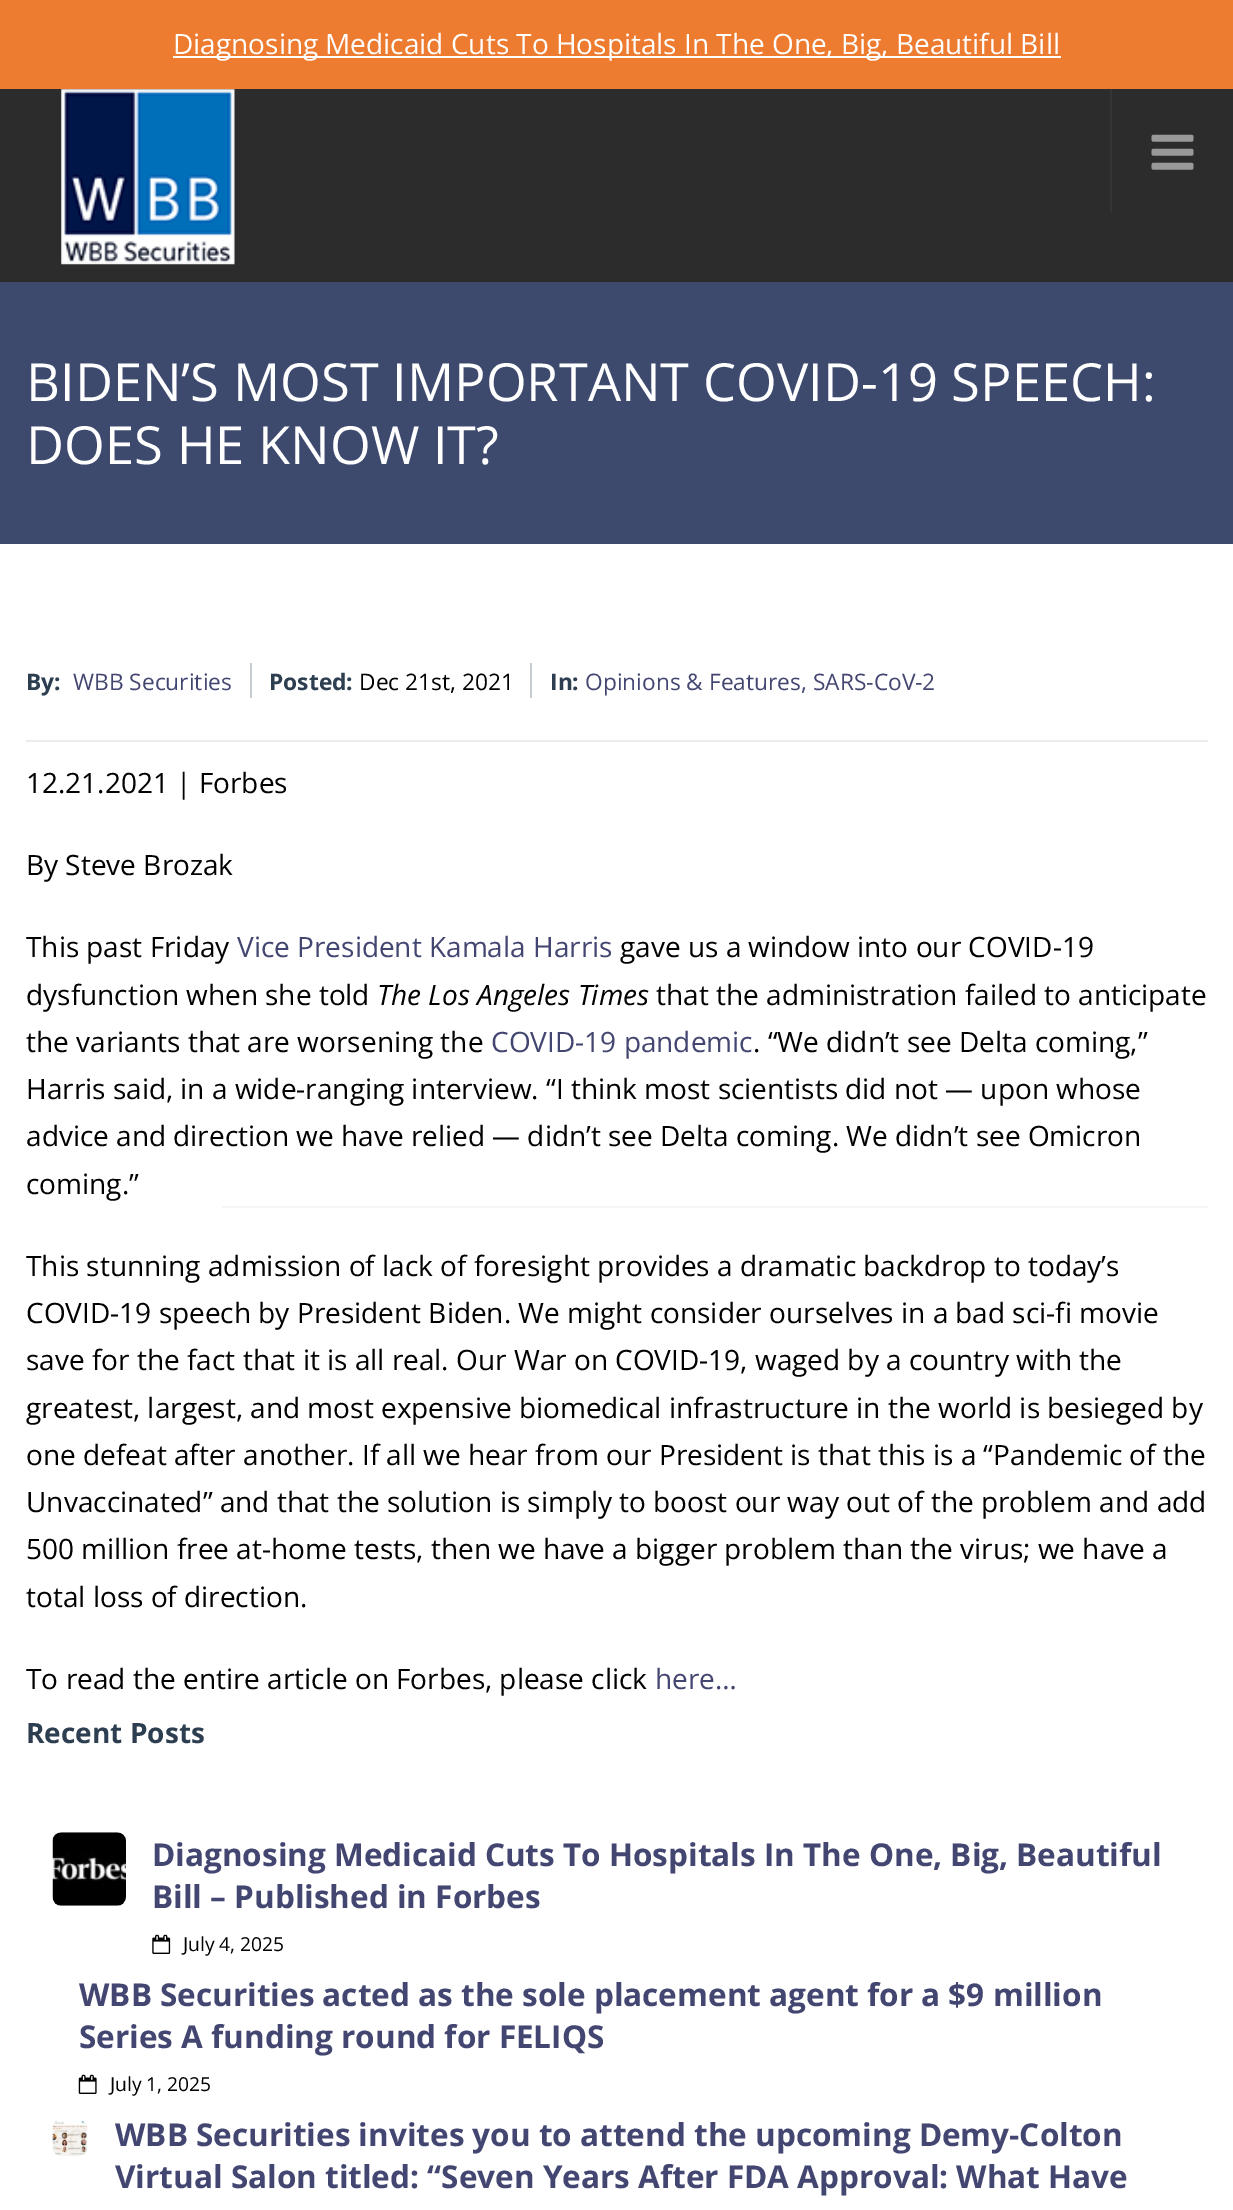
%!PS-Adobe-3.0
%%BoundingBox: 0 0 1233 2210
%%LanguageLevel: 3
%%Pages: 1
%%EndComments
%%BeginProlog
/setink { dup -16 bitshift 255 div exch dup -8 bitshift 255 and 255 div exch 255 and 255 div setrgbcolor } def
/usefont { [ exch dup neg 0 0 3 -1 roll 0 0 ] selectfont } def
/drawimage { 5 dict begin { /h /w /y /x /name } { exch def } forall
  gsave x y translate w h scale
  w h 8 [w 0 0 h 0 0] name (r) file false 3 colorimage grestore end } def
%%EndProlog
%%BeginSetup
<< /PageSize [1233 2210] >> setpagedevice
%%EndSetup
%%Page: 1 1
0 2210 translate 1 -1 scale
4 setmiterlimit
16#FFFFFF setink
0 0 1233 2210 rectfill
16#ED7C31 setink
0 0 1233 89 rectfill
16#FFFFFF setink
173 56 888 2 rectfill
/OpenSans-Regular 28 usefont
173 54 moveto (Diagnosing Medicaid Cuts To Hospitals In The One, Big, Beautiful Bill) show
16#2C2C2C setink
0 89 1233 193 rectfill
(img1.raw) 61 89 174 176 drawimage
16#353535 setink
1110 89 2 123 rectfill
(img2.raw) 1151 134 43 36 drawimage
16#3D4A6E setink
0 282 1233 262 rectfill
/OpenSans-Regular 52.5 usefont
16#FFFFFF setink
26 401 moveto (BIDEN’S MOST IMPORTANT COVID-19 SPEECH:) show
26 464 moveto (DOES HE KNOW IT?) show
/OpenSans-Bold 22.75 usefont
16#2C3E50 setink
26 690 moveto (By:) show
/OpenSans-Regular 22.75 usefont
16#434670 setink
73 690 moveto (WBB Securities) show
16#C5CDD3 setink
250 663 2 35 rectfill
/OpenSans-Bold 22.75 usefont
16#2C3E50 setink
269 690 moveto (Posted:) show
/OpenSans-Regular 22.75 usefont
16#000000 setink
359 690 moveto (Dec 21st, 2021) show
16#C5CDD3 setink
530 663 2 35 rectfill
/OpenSans-Bold 22.75 usefont
16#2C3E50 setink
550 690 moveto (In:) show
/OpenSans-Regular 22.75 usefont
16#434670 setink
585 690 moveto (Opinions & Features, SARS-CoV-2) show
16#ECECEC setink
26 740 1182 2 rectfill
/OpenSans-Regular 28 usefont
16#000000 setink
[
    [(12.21.2021 | Forbes) 26 793]
    [(By Steve Brozak) 26 875]
    [(This past Friday) 26 957]
] { aload pop moveto show } forall
16#434670 setink
237 957 moveto (Vice President Kamala Harris) show
16#000000 setink
620 957 moveto (gave us a window into our COVID-19) show
26 1005 moveto (dysfunction when she told) show
/OpenSans-Italic 28 usefont
377 1005 moveto (The Los Angeles Times) show
/OpenSans-Regular 28 usefont
656 1005 moveto (that the administration failed to anticipate) show
26 1052 moveto (the variants that are worsening the) show
16#434670 setink
491 1052 moveto (COVID-19 pandemic) show
16#000000 setink
[
    [(. “We didn’t see Delta coming,”) 753 1052]
    [(Harris said, in a wide-ranging interview. “I think most scientists did not — upon whose) 26 1099]
    [(advice and direction we have relied — didn’t see Delta coming. We didn’t see Omicron) 26 1146]
    [(coming.”) 26 1194]
    [(This stunning admission of lack of foresight provides a dramatic backdrop to today’s) 26 1276]
    [(COVID-19 speech by President Biden. We might consider ourselves in a bad sci-fi movie) 26 1323]
    [(save for the fact that it is all real. Our War on COVID-19, waged by a country with the) 26 1370]
    [(greatest, largest, and most expensive biomedical infrastructure in the world is besieged by) 26 1418]
    [(one defeat after another. If all we hear from our President is that this is a “Pandemic of the) 26 1465]
    [(Unvaccinated” and that the solution is simply to boost our way out of the problem and add) 26 1512]
    [(500 million free at-home tests, then we have a bigger problem than the virus; we have a) 26 1559]
    [(total loss of direction.) 26 1607]
    [(To read the entire article on Forbes, please click) 26 1689]
] { aload pop moveto show } forall
16#434670 setink
655 1689 moveto (here…) show
16#F5F5F5 setink
222 1206 986 2 rectfill
/OpenSans-Bold 28 usefont
16#2C3E50 setink
26 1743 moveto (Recent Posts) show
(img3.raw) 52 1832 74 74 drawimage
/OpenSans-Bold 31.5 usefont
16#434670 setink
152 1866 moveto (Diagnosing Medicaid Cuts To Hospitals In The One, Big, Beautiful) show
152 1908 moveto (Bill – Published in Forbes) show
(img4.raw) 152 1934 19 20 drawimage
/OpenSans-Regular 19.25 usefont
16#000000 setink
183 1951 moveto (July 4, 2025) show
/OpenSans-Bold 31.5 usefont
16#434670 setink
79 2006 moveto (WBB Securities acted as the sole placement agent for a $9 million) show
79 2048 moveto (Series A funding round for FELIQS) show
(img5.raw) 78 2074 19 20 drawimage
/OpenSans-Regular 19.25 usefont
16#000000 setink
110 2091 moveto (July 1, 2025) show
(img6.raw) 52 2120 36 36 drawimage
/OpenSans-Bold 31.5 usefont
16#434670 setink
115 2146 moveto (WBB Securities invites you to attend the upcoming Demy-Colton) show
115 2188 moveto (Virtual Salon titled: “Seven Years After FDA Approval: What Have) show
showpage
%%EOF
